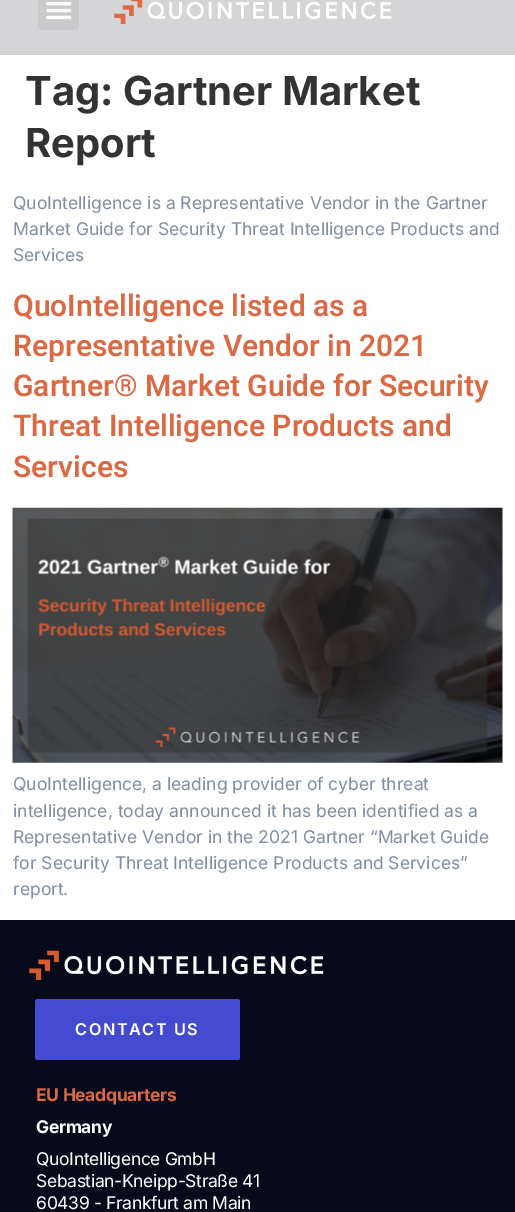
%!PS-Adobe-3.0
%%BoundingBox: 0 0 515 1212
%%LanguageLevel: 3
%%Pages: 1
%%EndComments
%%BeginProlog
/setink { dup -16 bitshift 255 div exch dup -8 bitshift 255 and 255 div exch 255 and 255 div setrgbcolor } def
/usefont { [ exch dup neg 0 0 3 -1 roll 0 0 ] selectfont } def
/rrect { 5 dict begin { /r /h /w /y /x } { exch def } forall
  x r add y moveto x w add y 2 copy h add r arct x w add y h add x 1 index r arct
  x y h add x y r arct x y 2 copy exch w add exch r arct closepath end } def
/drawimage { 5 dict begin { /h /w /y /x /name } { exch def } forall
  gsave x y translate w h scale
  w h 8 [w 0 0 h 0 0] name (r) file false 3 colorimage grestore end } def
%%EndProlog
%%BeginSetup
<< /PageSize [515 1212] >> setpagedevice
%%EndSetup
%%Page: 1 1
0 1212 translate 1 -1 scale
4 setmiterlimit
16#FFFFFF setink
0 0 515 1212 rectfill
16#D5D5D8 setink
0 0 515 55 rectfill
16#CACACD setink
38 -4 41 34 4 rrect fill
(img1.raw) 46 2 26 18 drawimage
(img2.raw) 114 0 278 24 drawimage
/Inter-Bold 40 usefont
16#333333 setink
25 105 moveto (Tag: Gartner Market) show
25 157 moveto (Report) show
/Inter-Regular 17.5 usefont
16#828FA0 setink
[
    [(QuoIntelligence is a Representative Vendor in the Gartner) 13 209]
    [(Market Guide for Security Threat Intelligence Products and) 13 235]
    [(Services) 13 261]
] { aload pop moveto show } forall
/Heebo-SemiBold 30 usefont
16#DA6944 setink
[
    [(QuoIntelligence listed as a) 13 316]
    [(Representative Vendor in 2021) 13 356]
    [(Gartner® Market Guide for Security) 13 396]
    [(Threat Intelligence Products and) 13 436]
    [(Services) 13 477]
] { aload pop moveto show } forall
(img3.raw) 12 507 491 256 drawimage
/Inter-Regular 17.5 usefont
16#828FA0 setink
[
    [(QuoIntelligence, a leading provider of cyber threat) 13 790]
    [(intelligence, today announced it has been identified as a) 13 817]
    [(Representative Vendor in the 2021 Gartner “Market Guide) 13 843]
    [(for Security Threat Intelligence Products and Services”) 13 869]
    [(report.) 13 895]
] { aload pop moveto show } forall
16#08091A setink
0 920 515 292 rectfill
(img4.raw) 29 950 295 31 drawimage
16#454BD1 setink
35 999 205 61 2.5 rrect fill
/Inter-SemiBold 16.25 usefont
16#FFFFFF setink
75 1035 moveto 1.6 0 (CONTACT US) ashow
/Inter-Bold 17.5 usefont
16#DA6944 setink
36 1101 moveto -0.35 0 (EU Headquarters) ashow
16#FFFFFF setink
36 1133 moveto -0.35 0 (Germany) ashow
/Inter-Regular 17.5 usefont
36 1165 moveto -0.35 0 (QuoIntelligence GmbH) ashow
36 1187 moveto -0.35 0 (Sebastian-Kneipp-Straße 41) ashow
36 1209 moveto -0.35 0 (60439 - Frankfurt am Main) ashow
showpage
%%EOF
